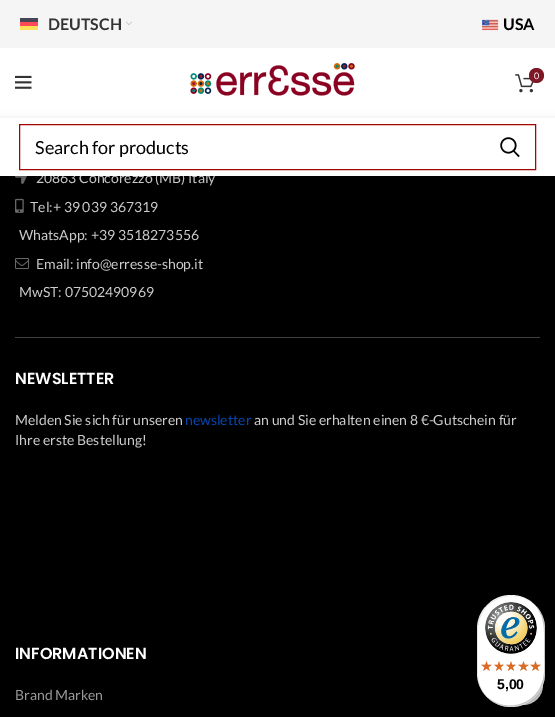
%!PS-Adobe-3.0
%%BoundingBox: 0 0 555 717
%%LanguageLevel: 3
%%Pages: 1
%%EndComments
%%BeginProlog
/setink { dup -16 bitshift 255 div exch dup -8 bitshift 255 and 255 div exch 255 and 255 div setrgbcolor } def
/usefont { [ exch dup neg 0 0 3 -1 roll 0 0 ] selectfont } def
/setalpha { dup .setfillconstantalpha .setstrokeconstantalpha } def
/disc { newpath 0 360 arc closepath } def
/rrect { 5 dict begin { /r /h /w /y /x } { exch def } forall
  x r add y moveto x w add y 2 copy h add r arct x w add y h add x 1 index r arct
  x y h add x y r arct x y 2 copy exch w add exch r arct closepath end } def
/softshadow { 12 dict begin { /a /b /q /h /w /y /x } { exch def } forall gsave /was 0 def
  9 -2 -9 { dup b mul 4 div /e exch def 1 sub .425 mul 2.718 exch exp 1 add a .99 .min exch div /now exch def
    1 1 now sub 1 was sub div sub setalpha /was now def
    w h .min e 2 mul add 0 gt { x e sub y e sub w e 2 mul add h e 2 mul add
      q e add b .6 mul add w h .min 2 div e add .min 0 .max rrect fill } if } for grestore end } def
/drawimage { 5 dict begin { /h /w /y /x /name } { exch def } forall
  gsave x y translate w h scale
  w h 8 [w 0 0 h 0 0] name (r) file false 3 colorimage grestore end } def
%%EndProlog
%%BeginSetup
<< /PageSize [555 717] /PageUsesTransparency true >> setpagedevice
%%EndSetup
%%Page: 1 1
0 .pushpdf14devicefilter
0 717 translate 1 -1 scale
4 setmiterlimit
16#000000 setink
0 0 555 717 rectfill
(img7.raw) 15 176 12 8 drawimage
0 1 555 176 0 1.5 0.1 softshadow
/Lato-Regular 14 usefont
16#CCCCCC setink
36 183 moveto (20863 Concorezzo \(MB\) Italy) show
[
    [0 48 555 128 16#FFFFFF]
    [0 0 555 48 16#F5F5F5]
    [20 18 18 4 16#464655]
] { aload pop setink rectfill } forall
/Lato-Bold 16 usefont
16#333333 setink
48 30 moveto (DEUTSCH) show
16#FF4B55 setink
20 22 18 4 rectfill
16#FFE15A setink
20 26 18 4 rectfill
(img1.raw) 126 21 6 4 drawimage
(img2.raw) 482 19 17 12 drawimage
16#000000 setink
503 30 moveto (USA) show
(img3.raw) 15 75 17 14 drawimage
(img4.raw) 190 63 165 33 drawimage
(img5.raw) 515 74 19 19 drawimage
16#7F1725 setink
536.5 75.5 7.5 disc fill
/Lato-Regular 9 usefont
16#FFFFFF setink
534 79 moveto (0) show
gsave
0 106 moveto 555 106 lineto 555 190 lineto 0 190 lineto closepath 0 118 moveto 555 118 lineto 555 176 lineto 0 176 lineto closepath eoclip newpath
16#000000 setink
0 119 555 58 0 4 0.1 softshadow
grestore
16#A20505 setink
19.5 124.5 516 45 rectstroke
/Lato-Regular 18 usefont
16#000000 setink
35 154 moveto (Search for products) show
(img6.raw) 500 137 20 21 drawimage
16#404040 setink
15 337 525 1 rectfill
(img8.raw) 15 198 9 15 drawimage
/Lato-Regular 14 usefont
16#CCCCCC setink
30 212 moveto (Tel:+ 39 039 367319) show
19 240 moveto (WhatsApp: +39 3518273556) show
(img9.raw) 15 258 14 11 drawimage
36 269 moveto (Email: info@erresse-shop.it) show
19 297 moveto (MwST: 07502490969) show
/Poppins-SemiBold 16 usefont
16#FFFFFF setink
15 384 moveto (NEWSLETTER) show
/Lato-Regular 14 usefont
16#CCCCCC setink
15 425 moveto (Melden Sie sich für unseren) show
16#0645AD setink
185 425 moveto (newsletter) show
16#CCCCCC setink
254 425 moveto (an und Sie erhalten einen 8 €-Gutschein für) show
15 445 moveto (Ihre erste Bestellung!) show
/Poppins-SemiBold 16 usefont
16#FFFFFF setink
15 659 moveto (INFORMATIONEN) show
/Lato-Regular 14 usefont
16#999999 setink
15 700 moveto (Brand Marken) show
16#E6E6E6 setink
523 685 20 disc fill
16#000000 setink
480 598 68 112 34 4 0.15 softshadow
478 596 68 112 34 1 0.15 softshadow
16#FFFFFF setink
477 595 68 112 34 rrect fill
0.1 setalpha
16#000000 setink
512 596 moveto 520 596 528 599 534 604 curveto 517 589 489 595 480 616 curveto 475 626 477 640 477 651 curveto 477 666 474 683 486 696 curveto 481 690 478 682 478 674 curveto 478 630 lineto 478 611 493 596 512 596 curveto closepath fill
0.2 setalpha
488 698 moveto 505 713 533 707 542 686 curveto 547 676 545 662 545 651 curveto 545 636 548 619 536 606 curveto 546 619 544 635 544 650 curveto 544 661 546 675 541 685 curveto 533 706 505 712 488 698 curveto closepath fill
16#323232 setink
484 694 moveto 491 702 500 707 511 707 curveto 530 707 545 692 545 673 curveto 545 629 lineto 545 618 540 609 532 602 curveto 539 609 544 618 544 628 curveto 544 672 lineto 544 691 529 706 510 706 curveto 500 706 491 701 484 694 curveto closepath fill
0.3 setalpha
16#FFFFFF setink
484 694 moveto 491 702 500 707 511 707 curveto 530 707 545 692 545 673 curveto 545 629 lineto 545 618 540 609 532 602 curveto 539 609 544 618 544 628 curveto 544 672 lineto 544 691 529 706 510 706 curveto 500 706 491 701 484 694 curveto closepath fill
1 setalpha
(img10.raw) 485 602 52 52 drawimage
(img11.raw) 481 661 11 10 drawimage
(img12.raw) 494 661 10 10 drawimage
(img13.raw) 506 661 10 10 drawimage
(img14.raw) 518 661 11 10 drawimage
(img14.raw) 530 661 11 10 drawimage
(img15.raw) 481 661 11 10 drawimage
(img16.raw) 494 661 10 10 drawimage
(img17.raw) 506 661 10 10 drawimage
(img18.raw) 518 661 11 10 drawimage
(img18.raw) 530 661 11 10 drawimage
/LiberationSans-Bold 14 usefont
16#000000 setink
497 689 moveto (5,00) show
.poppdf14devicefilter showpage
%%EOF
